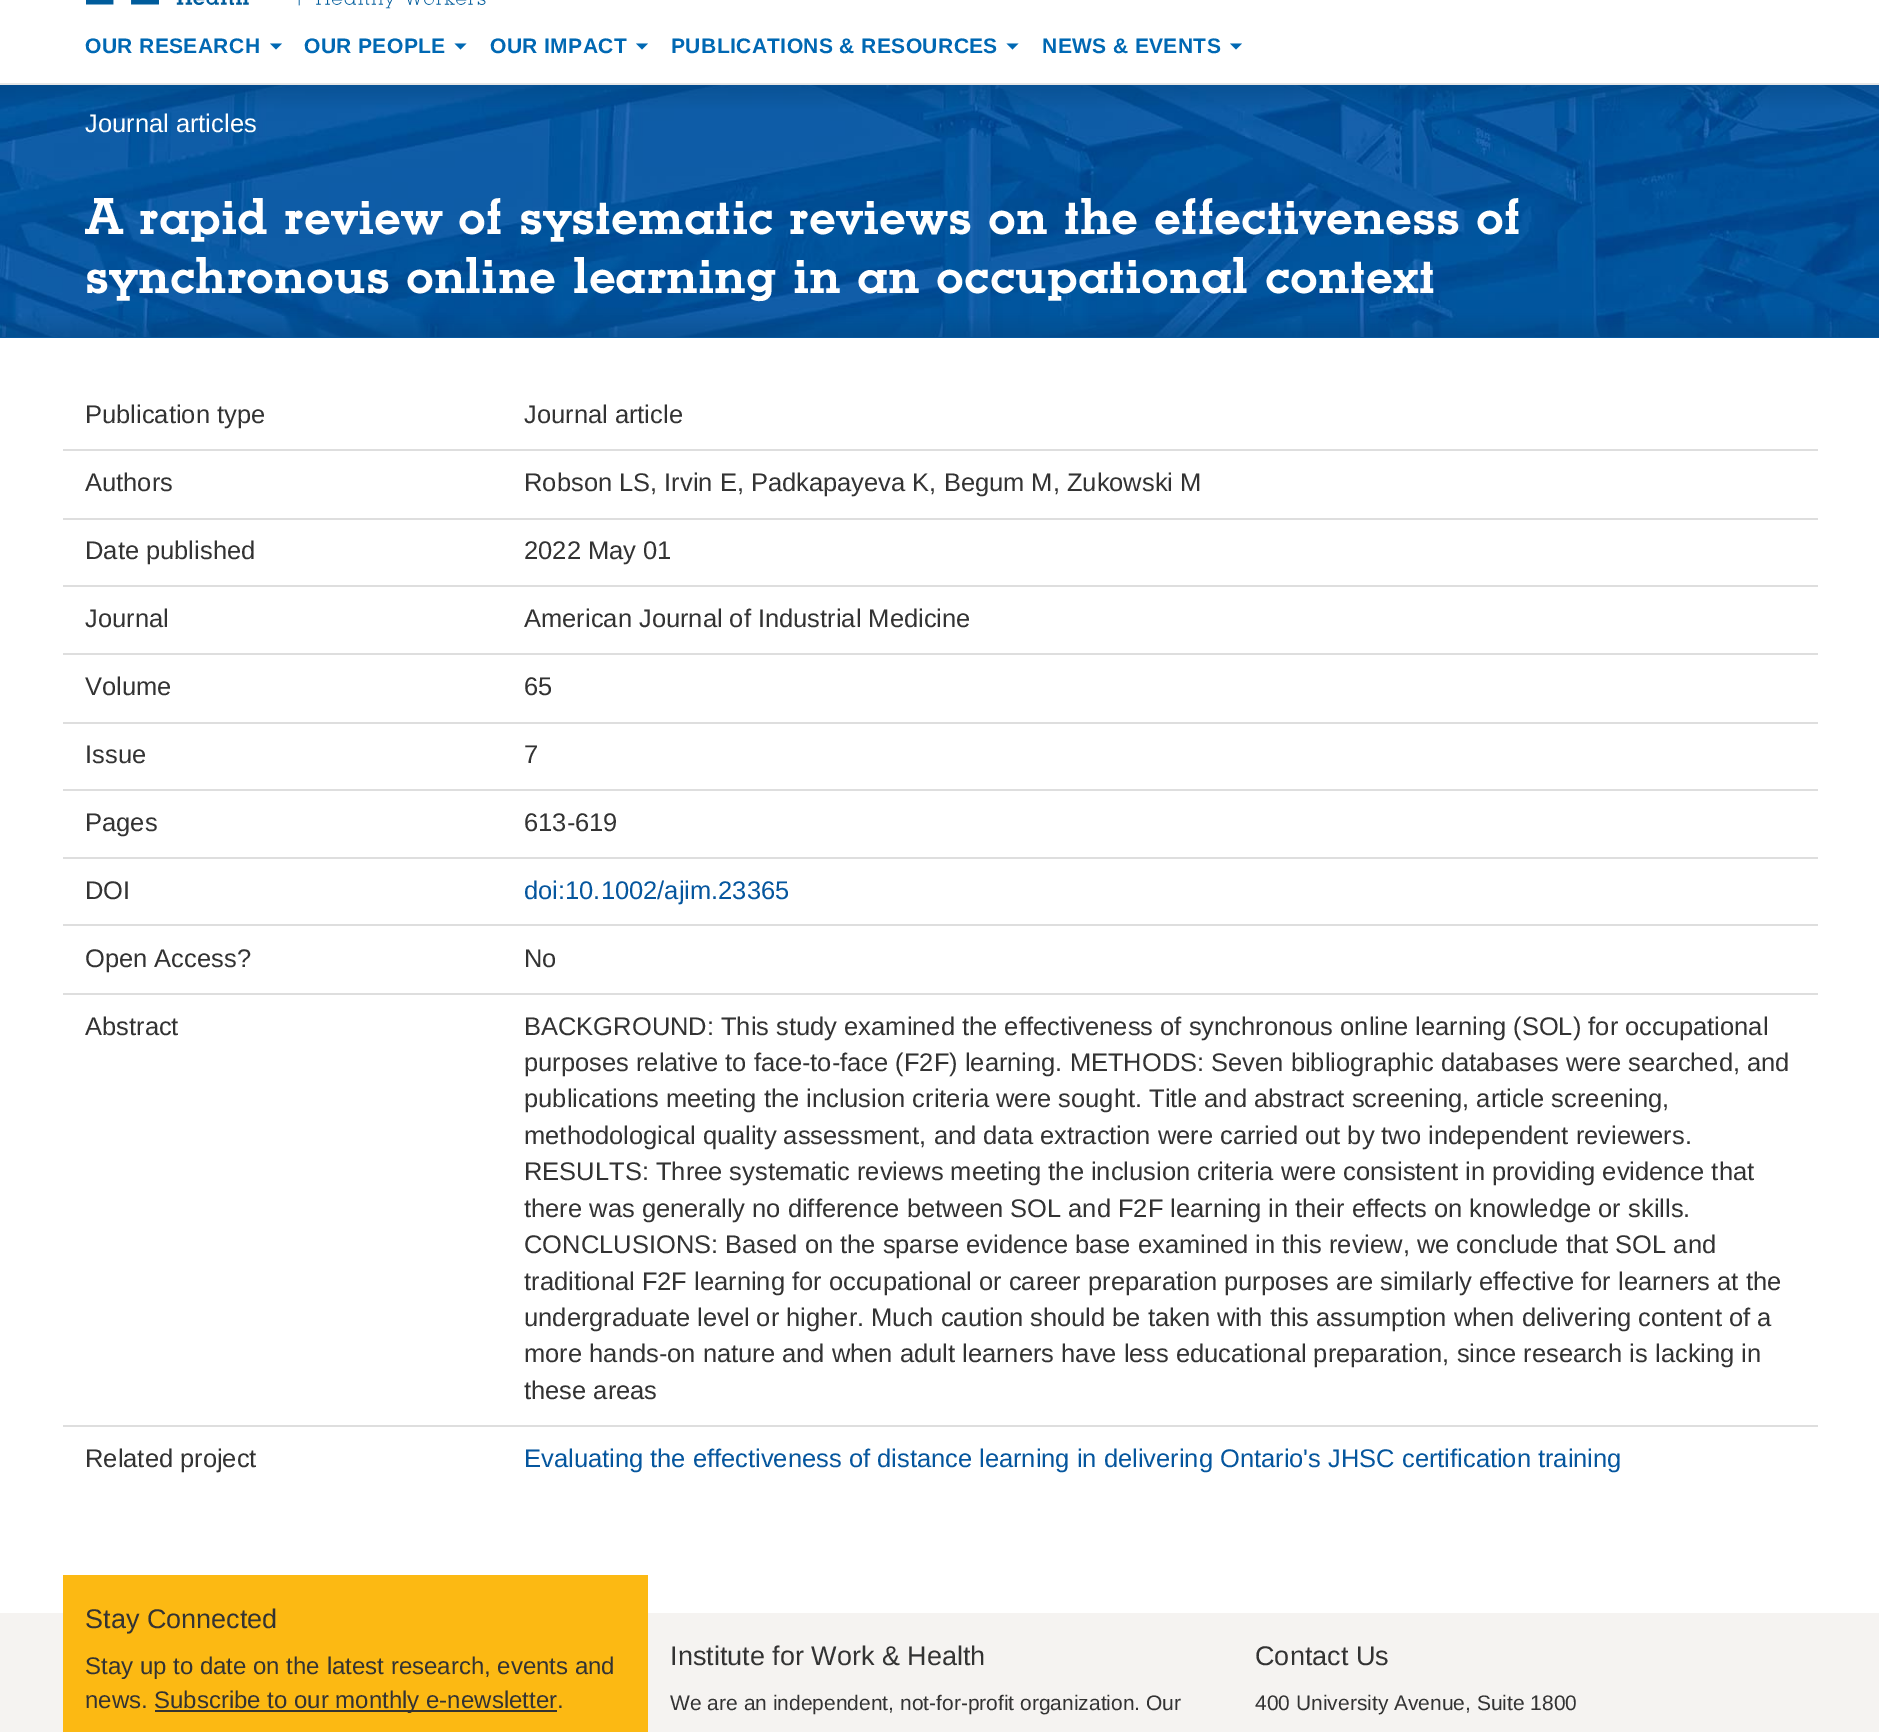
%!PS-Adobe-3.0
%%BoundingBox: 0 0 1879 1732
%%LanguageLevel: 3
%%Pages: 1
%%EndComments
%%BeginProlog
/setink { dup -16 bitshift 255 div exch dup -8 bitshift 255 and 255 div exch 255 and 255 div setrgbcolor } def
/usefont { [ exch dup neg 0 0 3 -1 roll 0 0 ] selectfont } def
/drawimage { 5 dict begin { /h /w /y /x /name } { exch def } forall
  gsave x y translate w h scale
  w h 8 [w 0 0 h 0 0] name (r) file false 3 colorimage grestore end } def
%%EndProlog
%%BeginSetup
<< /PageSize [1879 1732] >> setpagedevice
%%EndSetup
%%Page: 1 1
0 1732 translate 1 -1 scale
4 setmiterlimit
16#FFFFFF setink
0 0 1879 1732 rectfill
16#E7E7E7 setink
0 83 1879 2 rectfill
(img1.raw) 86 0 400 9 drawimage
/LiberationSans-Bold 21 usefont
16#0068B3 setink
85 53 moveto 0.4 0 (OUR RESEARCH) ashow
270 43.5 moveto 282 43.5 lineto 276 49.5 lineto closepath fill
304 53 moveto 0.4 0 (OUR PEOPLE) ashow
454.5 43.5 moveto 466.5 43.5 lineto 460.5 49.5 lineto closepath fill
490 53 moveto 0.4 0 (OUR IMPACT) ashow
636 43.5 moveto 648 43.5 lineto 642 49.5 lineto closepath fill
671 53 moveto 0.4 0 (PUBLICATIONS & RESOURCES) ashow
1006.5 43.5 moveto 1018.5 43.5 lineto 1012.5 49.5 lineto closepath fill
1042 53 moveto 0.4 0 (NEWS & EVENTS) ashow
1230 43.5 moveto 1242 43.5 lineto 1236 49.5 lineto closepath fill
16#05569E setink
0 337 1879 1 rectfill
(img2.raw) 0 85 1879 252 drawimage
/LiberationSans-Regular 25.5 usefont
16#FFFFFF setink
85 132 moveto (Journal articles) show
/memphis-Regular 54 usefont
85 234 moveto (A rapid review of systematic reviews on the effectiveness of) show
85 293 moveto (synchronous online learning in an occupational context) show
/LiberationSans-Regular 25.5 usefont
16#333333 setink
85 423 moveto (Publication type) show
524 423 moveto (Journal article) show
16#DEDEDE setink
63 449 1755 2 rectfill
16#333333 setink
85 491 moveto (Authors) show
524 491 moveto (Robson LS, Irvin E, Padkapayeva K, Begum M, Zukowski M) show
16#DEDEDE setink
63 518 1755 2 rectfill
16#333333 setink
85 559 moveto (Date published) show
524 559 moveto (2022 May 01) show
16#DEDEDE setink
63 585 1755 2 rectfill
16#333333 setink
85 627 moveto (Journal) show
524 627 moveto (American Journal of Industrial Medicine) show
16#DEDEDE setink
63 653 1755 2 rectfill
16#333333 setink
85 695 moveto (Volume) show
524 695 moveto (65) show
16#DEDEDE setink
63 722 1755 2 rectfill
16#333333 setink
85 763 moveto (Issue) show
524 763 moveto (7) show
16#DEDEDE setink
63 789 1755 2 rectfill
16#333333 setink
85 831 moveto (Pages) show
524 831 moveto (613-619) show
16#DEDEDE setink
63 857 1755 2 rectfill
16#333333 setink
85 899 moveto (DOI) show
16#05569E setink
524 899 moveto (doi:10.1002/ajim.23365) show
16#DEDEDE setink
63 924 1755 2 rectfill
16#333333 setink
85 967 moveto (Open Access?) show
524 967 moveto (No) show
16#DEDEDE setink
63 993 1755 2 rectfill
16#333333 setink
[
    [(Abstract) 85 1035]
    [(BACKGROUND: This study examined the effectiveness of synchronous online learning \(SOL\) for occupational) 524 1035]
    [(purposes relative to face-to-face \(F2F\) learning. METHODS: Seven bibliographic databases were searched, and) 524 1071]
    [(publications meeting the inclusion criteria were sought. Title and abstract screening, article screening,) 524 1107]
    [(methodological quality assessment, and data extraction were carried out by two independent reviewers.) 524 1144]
    [(RESULTS: Three systematic reviews meeting the inclusion criteria were consistent in providing evidence that) 524 1180]
    [(there was generally no difference between SOL and F2F learning in their effects on knowledge or skills.) 524 1217]
    [(CONCLUSIONS: Based on the sparse evidence base examined in this review, we conclude that SOL and) 524 1253]
    [(traditional F2F learning for occupational or career preparation purposes are similarly effective for learners at the) 524 1290]
    [(undergraduate level or higher. Much caution should be taken with this assumption when delivering content of a) 524 1326]
    [(more hands-on nature and when adult learners have less educational preparation, since research is lacking in) 524 1362]
    [(these areas) 524 1399]
] { aload pop moveto show } forall
16#DEDEDE setink
63 1425 1755 2 rectfill
16#333333 setink
85 1467 moveto (Related project) show
16#05569E setink
524 1467 moveto (Evaluating the effectiveness of distance learning in delivering Ontario's JHSC certification training) show
16#F5F3F1 setink
0 1613 1879 119 rectfill
16#FCB913 setink
63 1575 585 157 rectfill
/LiberationSans-Regular 27 usefont
16#333333 setink
85 1628 moveto (Stay Connected) show
/LiberationSans-Regular 24 usefont
85 1674 moveto (Stay up to date on the latest research, events and) show
85 1708 moveto (news.) show
155 1710 402 2 rectfill
154 1708 moveto (Subscribe to our monthly e-newsletter.) show
/LiberationSans-Regular 27 usefont
670 1665 moveto (Institute for Work & Health) show
/LiberationSans-Regular 21 usefont
670 1710 moveto (We are an independent, not-for-profit organization. Our) show
/LiberationSans-Regular 27 usefont
1255 1665 moveto (Contact Us) show
/LiberationSans-Regular 21 usefont
1255 1710 moveto (400 University Avenue, Suite 1800) show
showpage
%%EOF
